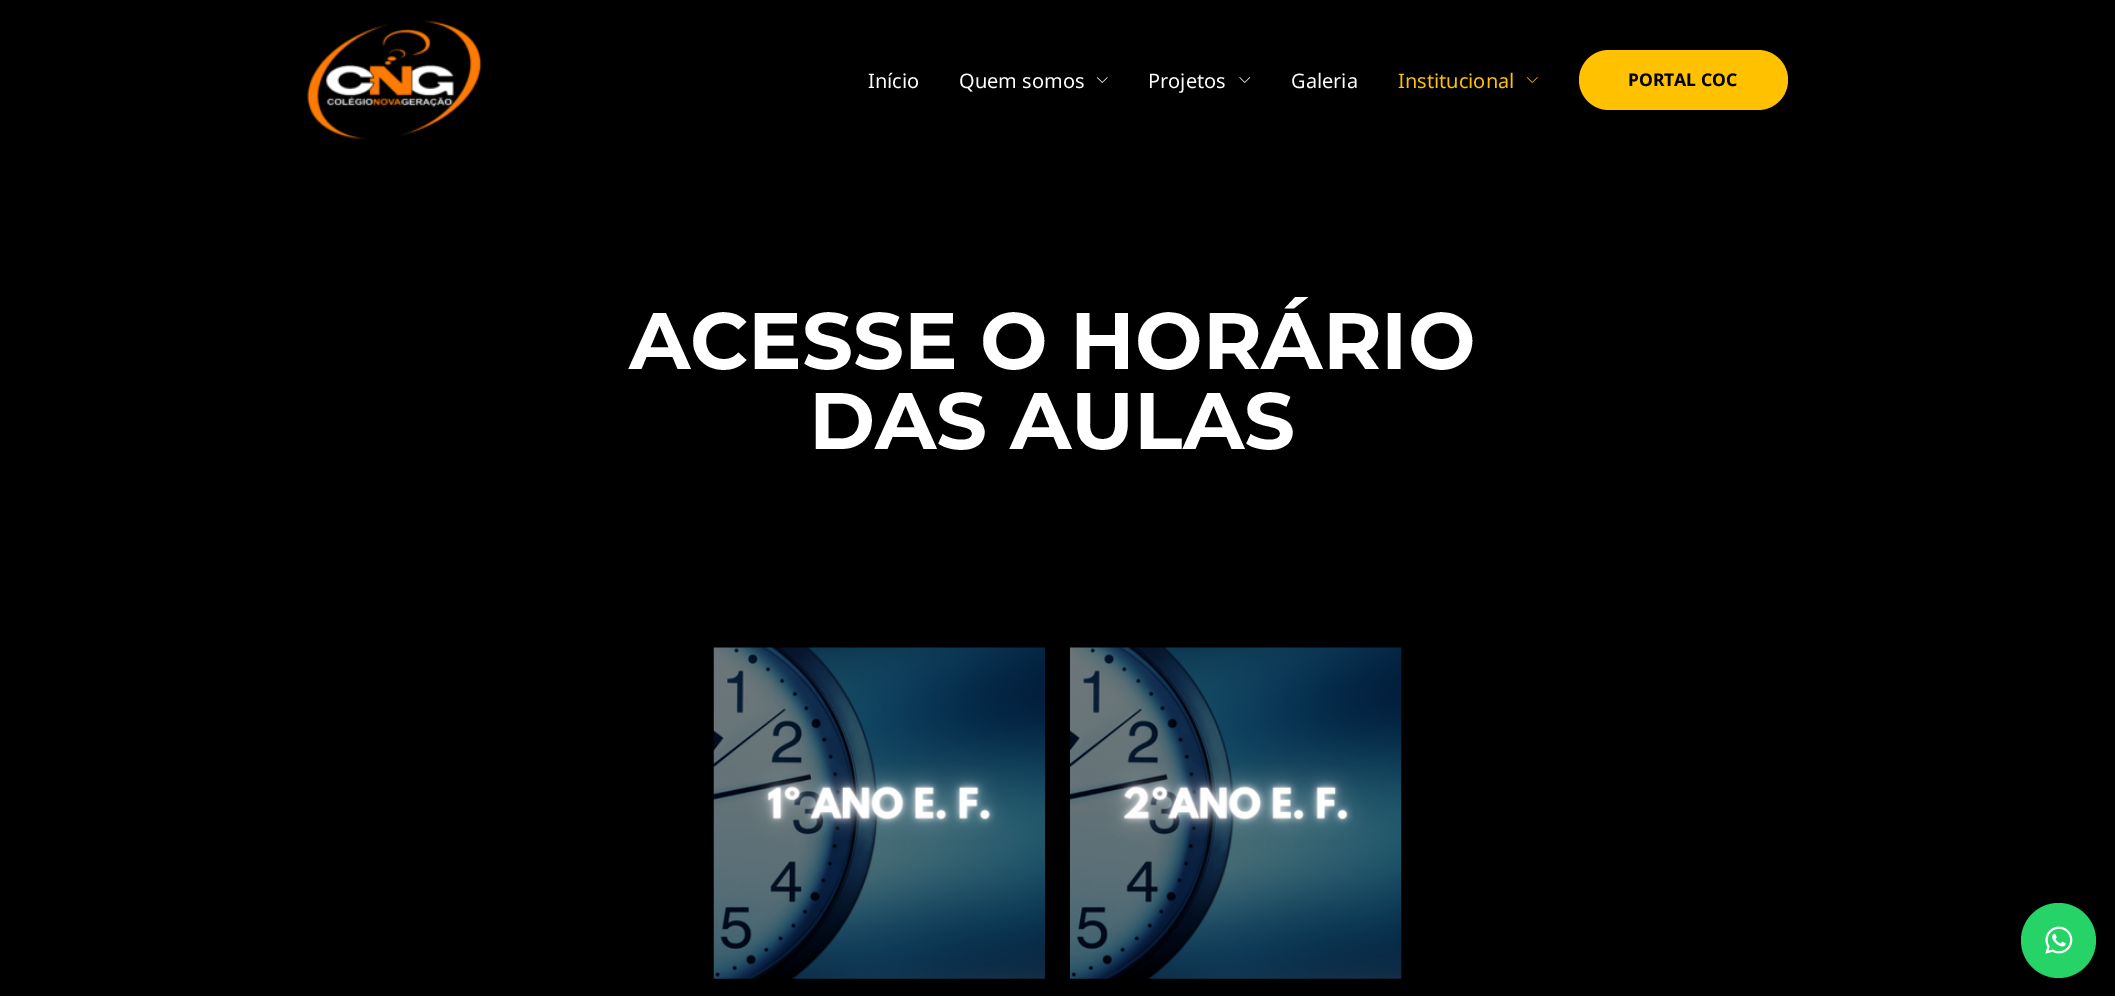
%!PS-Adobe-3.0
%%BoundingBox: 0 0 2115 996
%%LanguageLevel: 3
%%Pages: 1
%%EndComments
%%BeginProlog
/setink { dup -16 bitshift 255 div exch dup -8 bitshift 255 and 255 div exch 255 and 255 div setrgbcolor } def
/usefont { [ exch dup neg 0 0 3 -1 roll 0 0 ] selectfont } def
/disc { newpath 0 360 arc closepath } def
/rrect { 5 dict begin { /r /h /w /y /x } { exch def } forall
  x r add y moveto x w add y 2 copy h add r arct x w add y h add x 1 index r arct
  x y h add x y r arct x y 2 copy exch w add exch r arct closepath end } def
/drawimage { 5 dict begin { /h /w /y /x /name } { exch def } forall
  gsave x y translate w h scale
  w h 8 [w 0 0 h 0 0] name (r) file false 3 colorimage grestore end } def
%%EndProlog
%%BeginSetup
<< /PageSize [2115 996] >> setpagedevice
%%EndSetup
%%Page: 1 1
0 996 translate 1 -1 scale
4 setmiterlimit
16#000000 setink
0 0 2115 996 rectfill
(img1.raw) 307 20 175 120 drawimage
/NotoSans-Regular 20 usefont
16#FFFFFF setink
868 88 moveto (Início) show
959 88 moveto (Quem somos) show
(img2.raw) 1096 77 12 6 drawimage
1148 88 moveto (Projetos) show
(img3.raw) 1239 77 12 6 drawimage
1291 88 moveto (Galeria) show
16#FFC100 setink
1398 88 moveto (Institucional) show
(img4.raw) 1526 77 12 6 drawimage
1579 50 209 60 30 rrect fill
/NotoSans-Bold 17.5 usefont
16#000000 setink
1628 86 moveto (PORTAL COC) show
/Montserrat-Thin 80 usefont
16#FFFFFF setink
629 369 moveto (ACESSE O HORÁRIO) show
809 449 moveto (DAS AULAS) show
(img5.raw) 713 647 332 332 drawimage
(img6.raw) 1070 647 332 332 drawimage
16#25D366 setink
2058.5 940.5 37.5 disc fill
(img7.raw) 2045 926 28 28 drawimage
showpage
%%EOF
